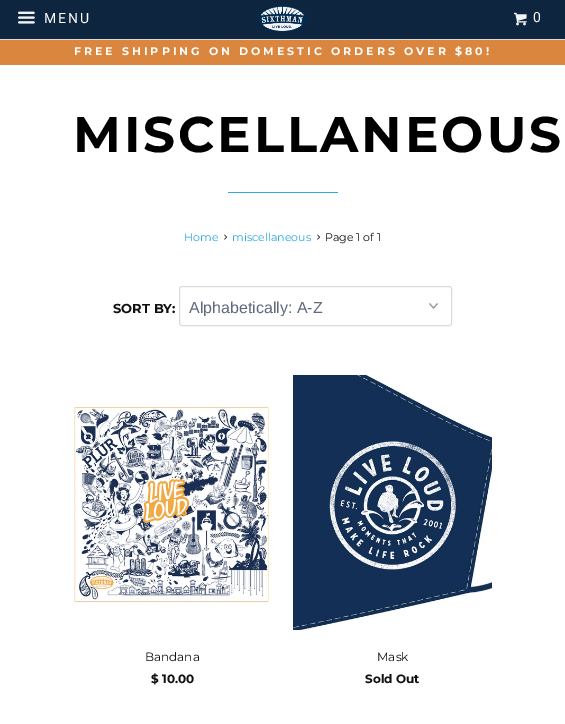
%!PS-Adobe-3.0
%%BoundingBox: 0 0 565 724
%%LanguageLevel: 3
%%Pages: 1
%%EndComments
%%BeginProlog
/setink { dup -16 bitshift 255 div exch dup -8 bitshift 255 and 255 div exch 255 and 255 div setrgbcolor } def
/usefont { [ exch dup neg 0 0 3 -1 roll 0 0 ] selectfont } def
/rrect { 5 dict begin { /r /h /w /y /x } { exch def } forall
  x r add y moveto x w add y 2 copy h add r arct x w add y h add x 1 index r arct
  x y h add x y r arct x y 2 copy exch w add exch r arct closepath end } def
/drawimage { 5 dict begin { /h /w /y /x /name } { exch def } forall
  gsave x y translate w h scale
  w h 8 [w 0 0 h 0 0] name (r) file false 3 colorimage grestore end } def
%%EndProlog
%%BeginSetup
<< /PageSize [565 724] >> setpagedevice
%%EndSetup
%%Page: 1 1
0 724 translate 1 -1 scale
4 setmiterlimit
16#FFFFFF setink
0 0 565 724 rectfill
16#0D253E setink
0 0 565 39 rectfill
16#DDD9D5 setink
0 39 565 1 rectfill
(img1.raw) 18 11 17 13 drawimage
/Roboto-Regular 14 usefont
16#FFFFFF setink
44 23 moveto 2 0 (MENU) ashow
(img2.raw) 258 5 49 28 drawimage
(img3.raw) 514 12 13 14 drawimage
533 22 moveto 2 0 (0) ashow
/Montserrat-Bold 50 usefont
16#000000 setink
73 152 moveto 3 0 (MISCELLANEOUS) ashow
16#2CAAE2 setink
228 192 110 1 rectfill
/Montserrat-Regular 11 usefont
184 241 moveto (Home) show
(img4.raw) 224 234 3 6 drawimage
232 241 moveto (miscellaneous) show
(img4.raw) 317 234 3 6 drawimage
16#111111 setink
325 241 moveto (Page 1 of 1) show
/Montserrat-Bold 13 usefont
113 313 moveto (SORT BY:) show
(img5.raw) 429 303 9 6 drawimage
16#D9DBDC setink
179.5 286.5 272 39 2.5 rrect stroke
gsave
189 299 253 17 rectclip
/LiberationSans-Regular 16 usefont
16#5F6A7D setink
189 313 moveto (Alphabetically: A-Z) show
grestore
(img6.raw) 74 406 195 197 drawimage
/Montserrat-Regular 12 usefont
16#111111 setink
145 661 moveto (Bandana) show
/Montserrat-Bold 12 usefont
151 683 moveto ($ 10.00) show
(img7.raw) 293 375 199 255 drawimage
/Montserrat-Regular 12 usefont
377 661 moveto (Mask) show
/Montserrat-Bold 12 usefont
365 683 moveto (Sold Out) show
16#DB863E setink
0 40 565 25 rectfill
/Montserrat-Bold 11 usefont
16#FFFFFF setink
74 55 moveto 3 0 (FREE SHIPPING ON DOMESTIC ORDERS OVER $80!) ashow
showpage
%%EOF
